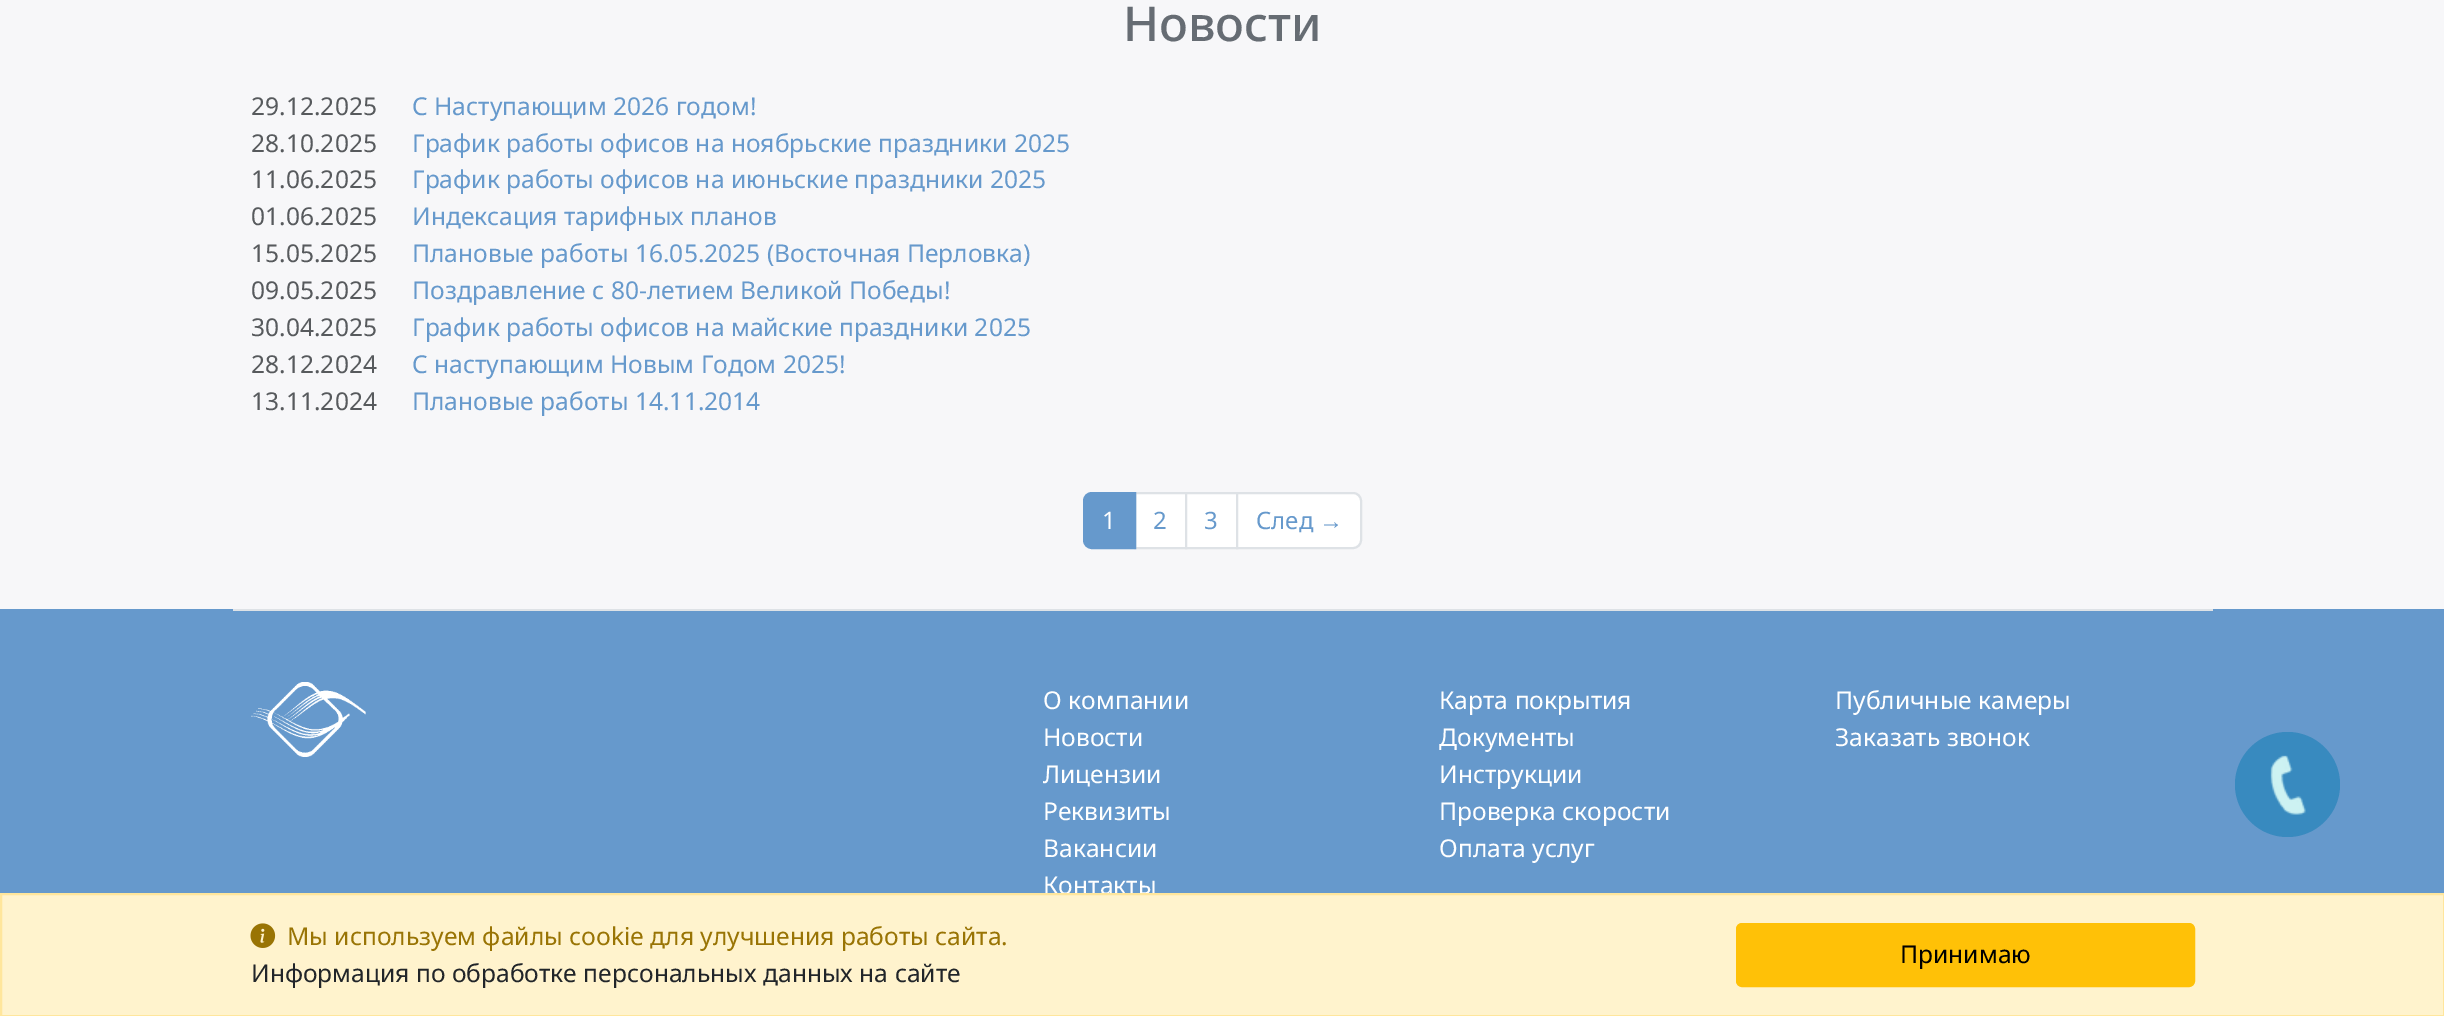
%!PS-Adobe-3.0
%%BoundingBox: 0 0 2444 1016
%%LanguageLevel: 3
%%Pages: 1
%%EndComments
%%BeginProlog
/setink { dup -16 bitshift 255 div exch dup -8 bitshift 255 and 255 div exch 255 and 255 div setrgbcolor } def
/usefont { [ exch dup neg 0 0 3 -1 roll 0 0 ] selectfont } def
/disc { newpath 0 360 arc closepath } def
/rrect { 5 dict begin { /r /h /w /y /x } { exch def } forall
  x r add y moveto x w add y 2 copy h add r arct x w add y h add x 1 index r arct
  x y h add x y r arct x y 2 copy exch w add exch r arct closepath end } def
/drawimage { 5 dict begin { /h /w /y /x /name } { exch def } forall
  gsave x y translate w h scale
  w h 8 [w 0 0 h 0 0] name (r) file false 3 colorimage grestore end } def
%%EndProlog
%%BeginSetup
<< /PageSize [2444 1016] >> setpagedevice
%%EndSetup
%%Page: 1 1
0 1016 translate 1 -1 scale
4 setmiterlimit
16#F7F7F9 setink
0 0 2444 1016 rectfill
/NotoSans-Medium 48 usefont
16#666C73 setink
1123 41 moveto (Новости) show
/NotoSans-Regular 24.6 usefont
16#575A5D setink
251 115 moveto (29.12.2025) show
16#6699CC setink
412 115 moveto (С Наступающим 2026 годом!) show
16#575A5D setink
251 152 moveto (28.10.2025) show
16#6699CC setink
412 152 moveto (График работы офисов на ноябрьские праздники 2025) show
16#575A5D setink
251 188 moveto (11.06.2025) show
16#6699CC setink
412 188 moveto (График работы офисов на июньские праздники 2025) show
16#575A5D setink
251 225 moveto (01.06.2025) show
16#6699CC setink
412 225 moveto (Индексация тарифных планов) show
16#575A5D setink
251 262 moveto (15.05.2025) show
16#6699CC setink
412 262 moveto (Плановые работы 16.05.2025 \(Восточная Перловка\)) show
16#575A5D setink
251 299 moveto (09.05.2025) show
16#6699CC setink
412 299 moveto (Поздравление с 80-летием Великой Победы!) show
16#575A5D setink
251 336 moveto (30.04.2025) show
16#6699CC setink
412 336 moveto (График работы офисов на майские праздники 2025) show
16#575A5D setink
251 373 moveto (28.12.2024) show
16#6699CC setink
412 373 moveto (С наступающим Новым Годом 2025!) show
16#575A5D setink
251 410 moveto (13.11.2024) show
16#6699CC setink
412 410 moveto (Плановые работы 14.11.2014) show
16#FFFFFF setink
1135 493 moveto 1186 493 lineto 1186 548 lineto 1135 548 lineto closepath gsave fill grestore
16#DEE2E6 setink
2 setlinewidth
stroke
16#6699CC setink
1092 493 moveto 1135 493 lineto 1135 548 lineto 1092 548 lineto 1087.5 548 1084 544.5 1084 540 curveto 1084 501 lineto 1084 496.5 1087.5 493 1092 493 curveto closepath gsave fill grestore
stroke
/NotoSans-Regular 24 usefont
16#FFFFFF setink
1102 529 moveto (1) show
16#6699CC setink
1153 529 moveto (2) show
16#FFFFFF setink
1186 493 moveto 1237 493 lineto 1237 548 lineto 1186 548 lineto closepath gsave fill grestore
16#DEE2E6 setink
stroke
16#6699CC setink
1204 529 moveto (3) show
16#FFFFFF setink
1237 493 moveto 1353 493 lineto 1357.5 493 1361 496.5 1361 501 curveto 1361 540 lineto 1361 544.5 1357.5 548 1353 548 curveto 1237 548 lineto closepath gsave fill grestore
16#DEE2E6 setink
stroke
16#6699CC setink
1256 529 moveto (След) show
/LiberationSans-Regular 24 usefont
1319 529 moveto (→) show
0 609 2444 284 rectfill
/NotoSans-Regular 24.6 usefont
16#FFFFFF setink
1043 894 moveto (Контакты) show
16#FFF3CD setink
1 894 moveto 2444 894 lineto 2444 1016 lineto 1 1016 lineto closepath gsave fill grestore
16#FFE69C setink
stroke
(img1.raw) 250 923 26 25 drawimage
16#997404 setink
287 945 moveto (Мы используем файлы cookie для улучшения работы сайта.) show
16#212529 setink
251 982 moveto (Информация по обработке персональных данных на сайте) show
16#FFC107 setink
1737 924 457 62 5 rrect gsave fill grestore
stroke
16#000000 setink
1900 963 moveto (Принимаю) show
16#DEE2E6 setink
233 609 1980 2 rectfill
(img2.raw) 251 682 115 75 drawimage
16#FFFFFF setink
[
    [(О компании) 1043 709]
    [(Новости) 1043 746]
    [(Лицензии) 1043 783]
    [(Реквизиты) 1043 820]
    [(Вакансии) 1043 857]
    [(Карта покрытия) 1439 709]
    [(Документы) 1439 746]
    [(Инструкции) 1439 783]
    [(Проверка скорости) 1439 820]
    [(Оплата услуг) 1439 857]
    [(Публичные камеры) 1835 709]
    [(Заказать звонок) 1835 746]
] { aload pop moveto show } forall
16#388ABF setink
2287.5 784.5 52.5 disc fill
(img3.raw) 2270 755 36 60 drawimage
showpage
%%EOF
